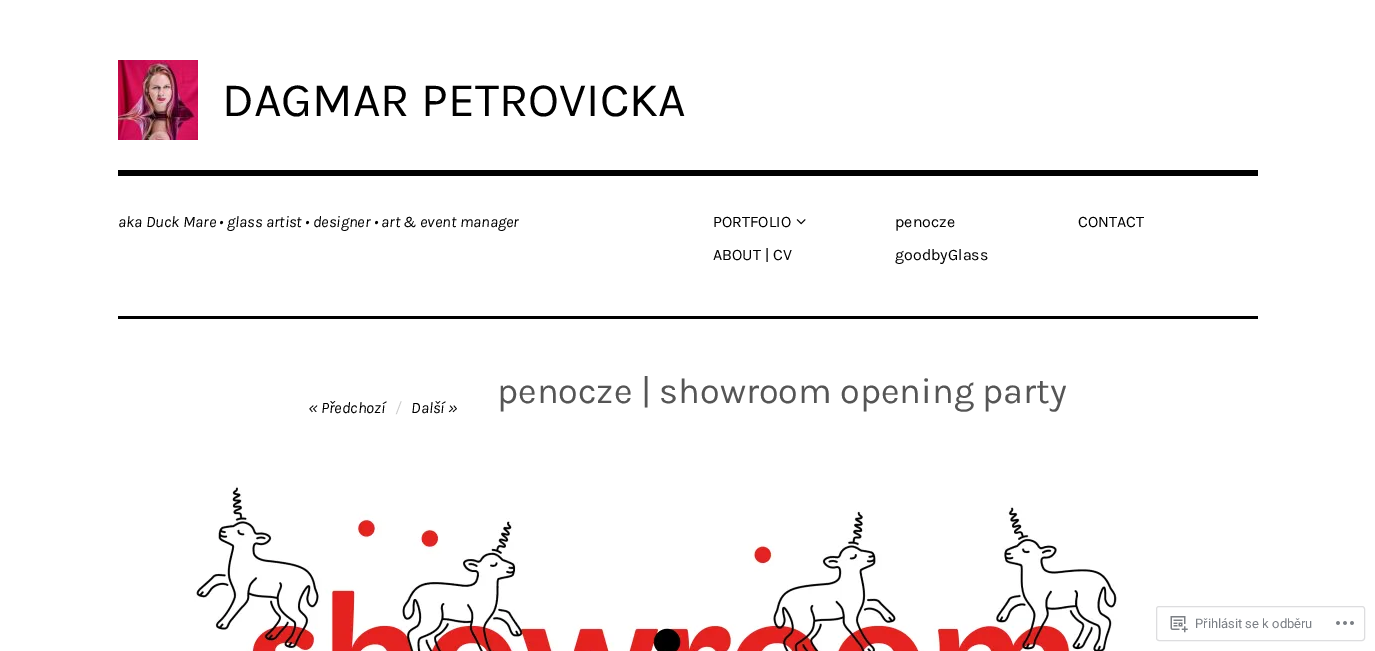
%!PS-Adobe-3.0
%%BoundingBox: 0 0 1375 651
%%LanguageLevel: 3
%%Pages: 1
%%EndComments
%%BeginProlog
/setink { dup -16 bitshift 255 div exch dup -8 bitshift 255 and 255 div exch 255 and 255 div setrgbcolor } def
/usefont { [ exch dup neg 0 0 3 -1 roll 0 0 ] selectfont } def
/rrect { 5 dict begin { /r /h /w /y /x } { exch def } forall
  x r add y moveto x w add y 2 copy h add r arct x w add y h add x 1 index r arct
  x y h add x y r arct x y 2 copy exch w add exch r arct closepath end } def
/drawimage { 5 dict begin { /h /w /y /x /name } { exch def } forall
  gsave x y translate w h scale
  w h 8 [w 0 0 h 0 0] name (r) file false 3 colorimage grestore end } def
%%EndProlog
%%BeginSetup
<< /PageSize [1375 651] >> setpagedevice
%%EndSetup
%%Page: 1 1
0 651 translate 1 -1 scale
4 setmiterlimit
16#FFFFFF setink
0 0 1375 651 rectfill
16#000000 setink
118 170 1140 6 rectfill
(img1.raw) 118 60 80 80 drawimage
/Karla-Regular 48 usefont
222 116 moveto (DAGMAR PETROVICKA) show
/Karla-Italic 16 usefont
118 227 moveto (aka Duck Mare • glass artist • designer • art & event manager) show
/Karla-Regular 16 usefont
713 227 moveto (PORTFOLIO) show
(img2.raw) 796 219 10 6 drawimage
[
    [(ABOUT | CV) 713 260]
    [(penocze) 895 227]
    [(goodbyGlass) 895 260]
    [(CONTACT) 1078 227]
] { aload pop moveto show } forall
118 316 1140 3 rectfill
/Karla-Italic 16 usefont
308 413 moveto (« Předchozí) show
16#CCCCCC setink
395 413 moveto (/) show
16#000000 setink
411 413 moveto (Další ») show
/Karla-Regular 36 usefont
16#555555 setink
497 403 moveto (penocze | showroom opening party) show
(img3.raw) 118 474 1140 177 drawimage
16#DDDDDF setink
1156.5 606.5 208 34 2.5 rrect stroke
(img4.raw) 1170 616 18 17 drawimage
/Roboto-Regular 13 usefont
16#7B7F85 setink
1195 628 moveto (Přihlásit se k odběru) show
(img5.raw) 1336 621 18 4 drawimage
showpage
%%EOF
